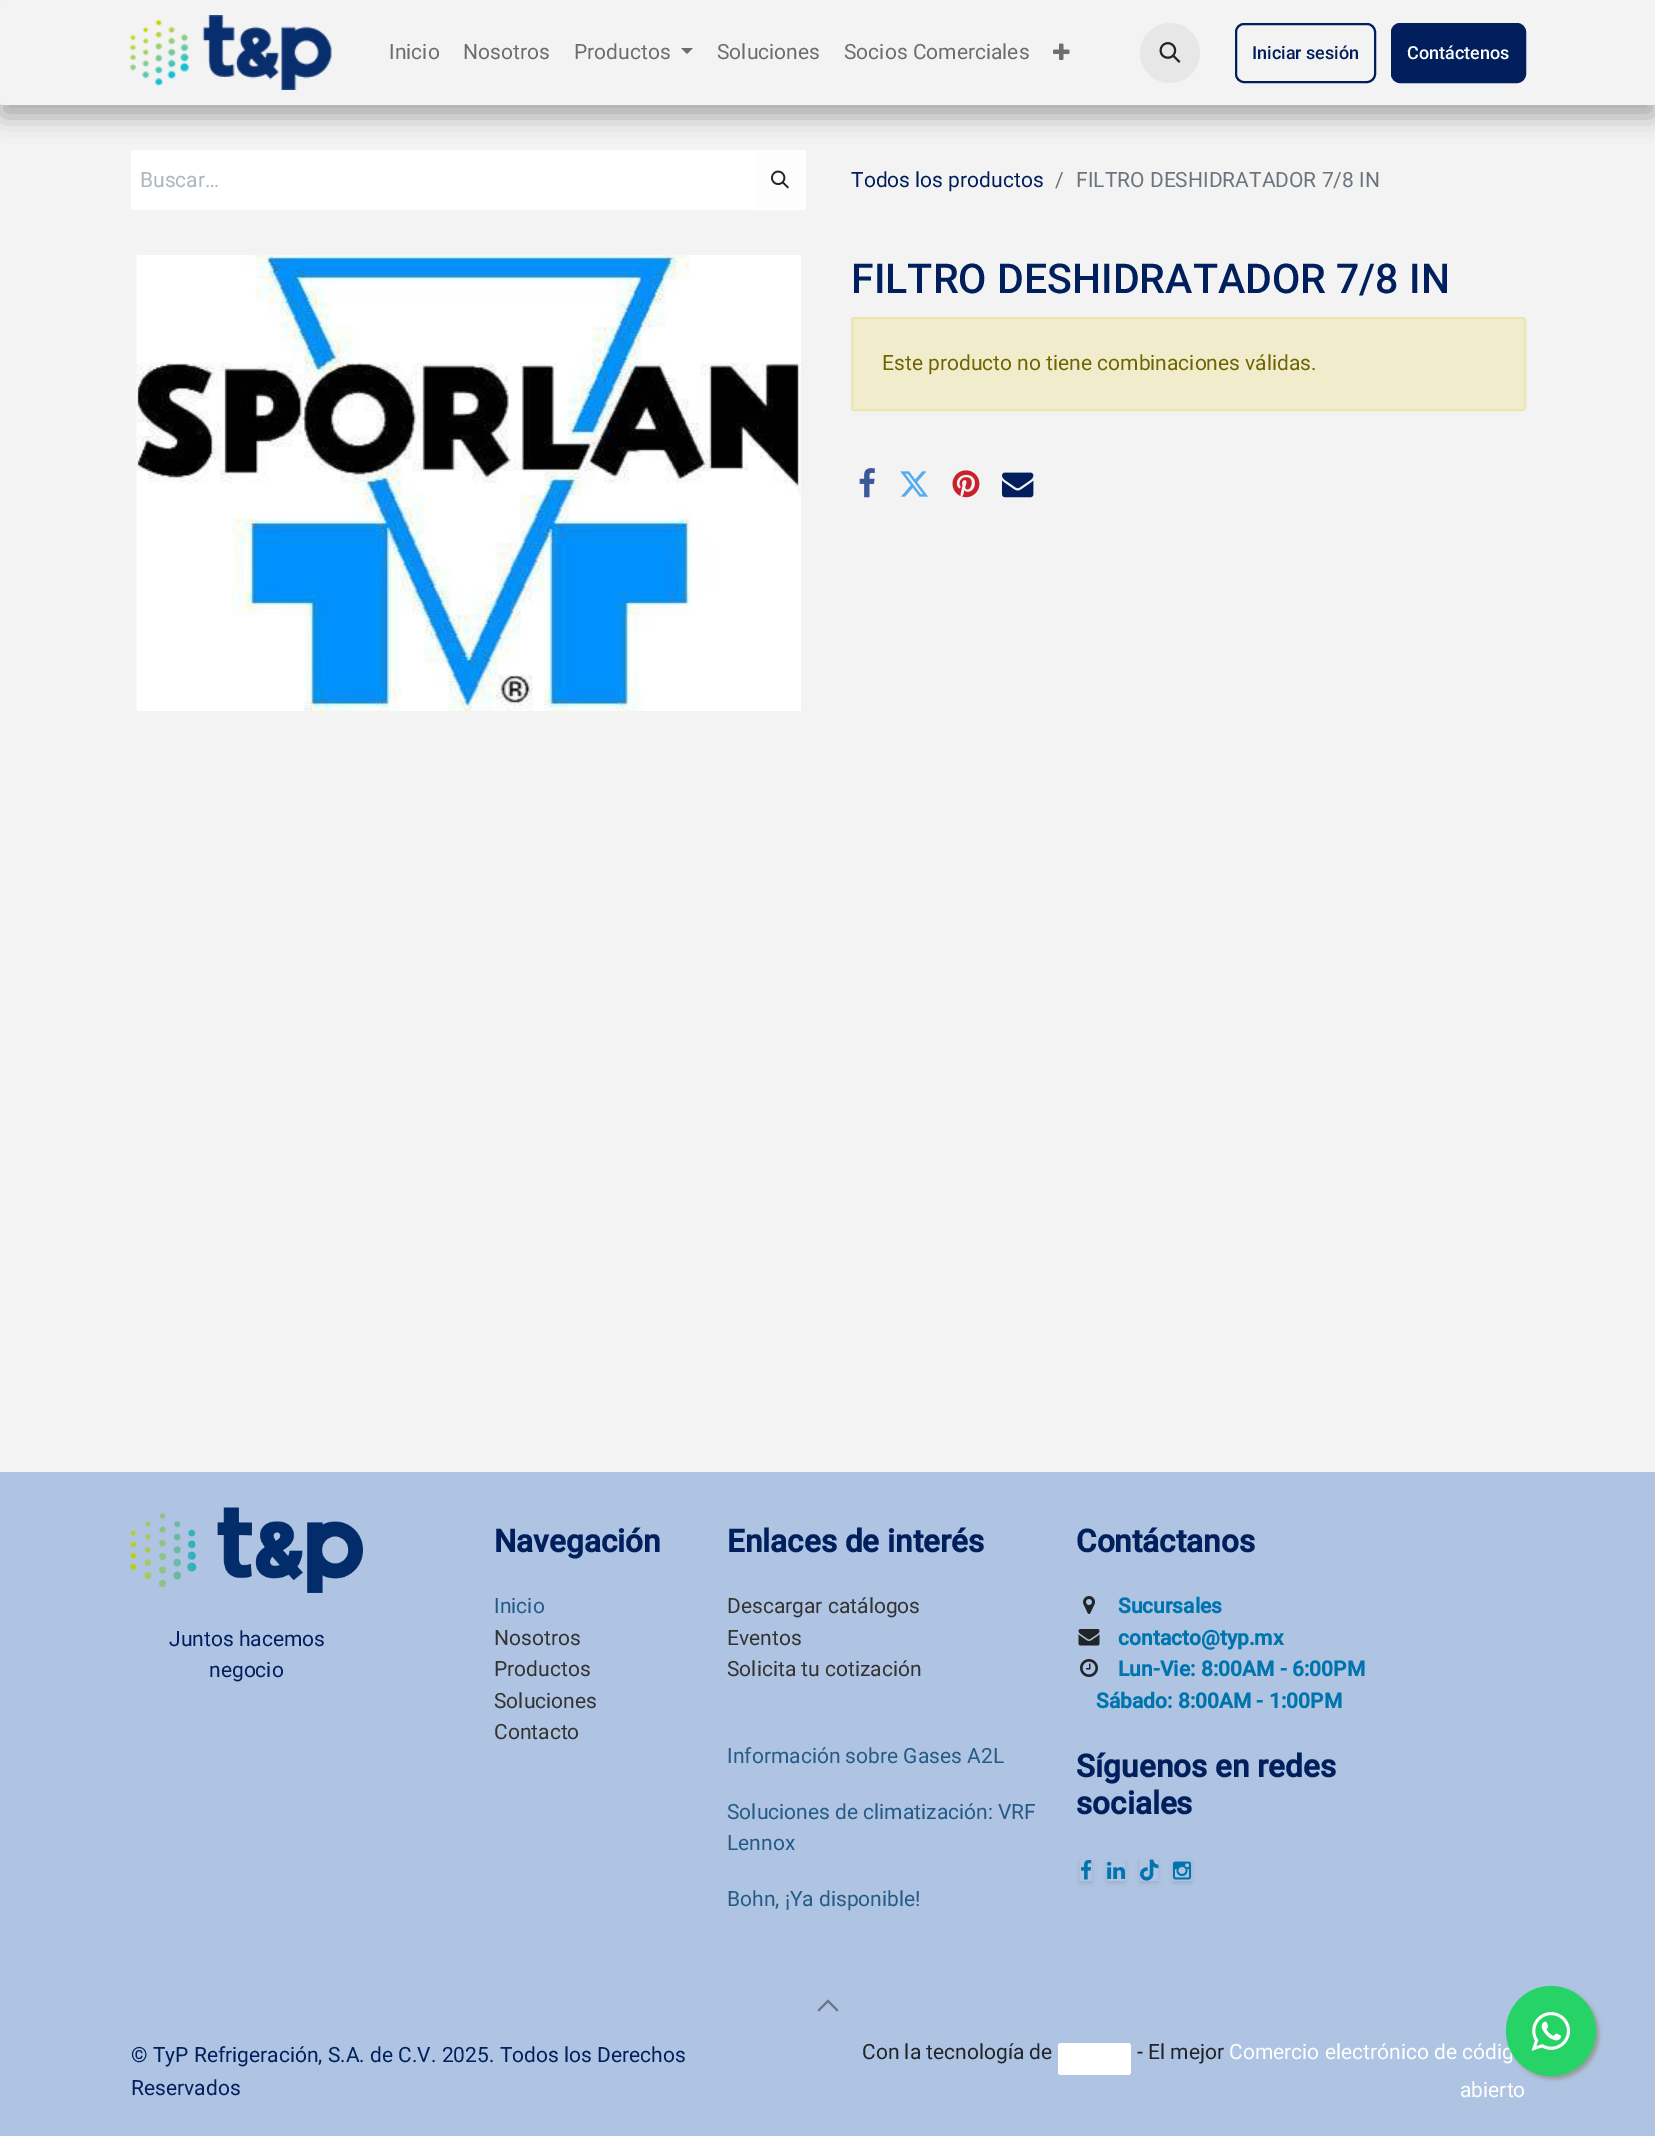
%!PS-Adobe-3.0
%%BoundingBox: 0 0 1655 2136
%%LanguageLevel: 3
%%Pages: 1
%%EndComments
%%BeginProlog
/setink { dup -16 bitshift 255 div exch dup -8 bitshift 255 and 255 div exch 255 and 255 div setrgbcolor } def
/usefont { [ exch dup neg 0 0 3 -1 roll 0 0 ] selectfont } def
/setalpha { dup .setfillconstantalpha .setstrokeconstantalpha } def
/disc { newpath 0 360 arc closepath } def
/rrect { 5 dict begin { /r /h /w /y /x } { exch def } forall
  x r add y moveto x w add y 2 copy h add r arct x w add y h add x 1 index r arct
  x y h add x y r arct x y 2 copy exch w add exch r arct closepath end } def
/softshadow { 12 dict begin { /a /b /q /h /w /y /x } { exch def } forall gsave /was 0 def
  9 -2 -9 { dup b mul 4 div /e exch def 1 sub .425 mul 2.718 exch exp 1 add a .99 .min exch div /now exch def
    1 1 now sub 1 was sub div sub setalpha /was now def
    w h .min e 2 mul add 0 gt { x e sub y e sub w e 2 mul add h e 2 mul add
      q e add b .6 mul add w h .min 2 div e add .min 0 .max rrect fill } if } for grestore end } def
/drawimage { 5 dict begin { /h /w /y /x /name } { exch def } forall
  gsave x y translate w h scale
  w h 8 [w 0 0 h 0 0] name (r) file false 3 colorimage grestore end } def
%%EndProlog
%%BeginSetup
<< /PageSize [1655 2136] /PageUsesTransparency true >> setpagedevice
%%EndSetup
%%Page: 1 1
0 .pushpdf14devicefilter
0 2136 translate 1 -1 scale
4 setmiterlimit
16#F3F3F3 setink
0 0 1655 2136 rectfill
16#FFFFFF setink
134 150 moveto 756 150 lineto 756 210 lineto 134 210 lineto 132.5 210 131 208.5 131 207 curveto 131 153 lineto 131 151.5 132.5 150 134 150 curveto closepath fill
0.85 setalpha
755 150 moveto 803 150 lineto 804.5 150 806 151.5 806 153 curveto 806 207 lineto 806 208.5 804.5 210 803 210 curveto 755 210 lineto closepath fill
2 setlinewidth
756 151 moveto 803 151 lineto 804 151 805 152 805 153 curveto 805 207 lineto 805 208 804 209 803 209 curveto 756 209 lineto closepath stroke
1 setalpha
16#000000 setink
0 12 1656 105 3 12 0.3 softshadow
16#F3F3F3 setink
0 0 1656 105 3 rrect fill
(img1.raw) 130 15 202 75 drawimage
/Roboto-Regular 21 usefont
16#6D6D6D setink
[
    [(Inicio) 389 59]
    [(Nosotros) 463 59]
    [(Productos) 574 59]
] { aload pop moveto show } forall
681 48 moveto 693 48 lineto 687 54 lineto closepath fill
717 59 moveto (Soluciones) show
844 59 moveto (Socios Comerciales) show
(img2.raw) 1053 43 17 17 drawimage
16#E7E7E7 setink
1170 53 30 disc fill
(img3.raw) 1159 42 22 21 drawimage
16#001F5C setink
1236 24 139 58 8 rrect stroke
/Roboto-Medium 18 usefont
1252 59 moveto (Iniciar sesión) show
1392 24 133 58 8 rrect gsave fill grestore
stroke
16#FFFFFF setink
1407 59 moveto (Contáctenos) show
/Roboto-Regular 21 usefont
16#ADB5BD setink
140 187 moveto (Buscar…) show
(img4.raw) 771 170 18 19 drawimage
16#001F5C setink
851 187 moveto (Todos los productos) show
16#6C757D setink
1055 187 moveto (/) show
1076 187 moveto (FILTRO DESHIDRATADOR 7/8 IN) show
(img5.raw) 136 255 665 456 drawimage
/Roboto-Medium 41.1 usefont
16#001F5C setink
851 293 moveto (FILTRO DESHIDRATADOR 7/8 IN) show
16#F1EDCC setink
852 318 673 92 2 rrect gsave fill grestore
16#EAE5B3 setink
stroke
/Roboto-Regular 21 usefont
16#6F6401 setink
882 370 moveto (Este producto no tiene combinaciones válidas.) show
(img6.raw) 859 468 16 30 drawimage
(img7.raw) 900 471 28 26 drawimage
(img8.raw) 952 470 28 28 drawimage
(img9.raw) 1002 472 32 26 drawimage
16#AEC4E2 setink
0 1472 1655 664 rectfill
(img10.raw) 130 1507 233 86 drawimage
16#001F5C setink
169 1646 moveto (Juntos hacemos) show
209 1677 moveto (negocio) show
/Roboto-Bold 31.5 usefont
494 1552 moveto (Navegación) show
/Roboto-Regular 21 usefont
16#265A87 setink
494 1613 moveto (Inicio) show
16#333333 setink
[
    [(Nosotros) 494 1645]
    [(Productos) 494 1676]
    [(Soluciones) 494 1708]
    [(Contacto) 494 1739]
] { aload pop moveto show } forall
/Roboto-Bold 31.5 usefont
16#001F5C setink
727 1552 moveto (Enlaces de interés) show
/Roboto-Regular 21 usefont
16#333333 setink
[
    [(Descargar catálogos) 727 1613]
    [(Eventos) 727 1645]
    [(Solicita tu cotización) 727 1676]
] { aload pop moveto show } forall
16#265A87 setink
[
    [(Información sobre Gases A2L) 727 1763]
    [(Soluciones de climatización: VRF) 727 1819]
    [(Lennox) 727 1850]
    [(Bohn, ¡Ya disponible!) 727 1906]
] { aload pop moveto show } forall
/Roboto-Bold 31.5 usefont
16#001F5C setink
1076 1552 moveto (Contáctanos) show
(img11.raw) 1083 1596 12 18 drawimage
/Roboto-Bold 21 usefont
16#0074AD setink
1118 1613 moveto (Sucursales) show
(img12.raw) 1078 1629 22 17 drawimage
1118 1645 moveto (contacto@typ.mx) show
(img13.raw) 1080 1659 18 18 drawimage
1118 1676 moveto (Lun-Vie: 8:00AM - 6:00PM) show
1096 1708 moveto (Sábado: 8:00AM - 1:00PM) show
/Roboto-Bold 31.5 usefont
16#001F5C setink
1076 1777 moveto (Síguenos en redes) show
1076 1814 moveto (sociales) show
gsave
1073 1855 moveto 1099 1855 lineto 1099 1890 lineto 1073 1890 lineto closepath 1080 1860 moveto 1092 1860 lineto 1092 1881 lineto 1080 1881 lineto closepath eoclip newpath
16#000000 setink
1080 1862 12 21 0 2 0.1 softshadow
grestore
(img14.raw) 1081 1860 11 20 drawimage
gsave
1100 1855 moveto 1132 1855 lineto 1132 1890 lineto 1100 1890 lineto closepath 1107 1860 moveto 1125 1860 lineto 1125 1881 lineto 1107 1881 lineto closepath eoclip newpath
16#000000 setink
1107 1862 18 21 0 2 0.1 softshadow
grestore
(img15.raw) 1107 1861 18 18 drawimage
gsave
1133 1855 moveto 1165 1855 lineto 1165 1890 lineto 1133 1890 lineto closepath 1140 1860 moveto 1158 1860 lineto 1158 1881 lineto 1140 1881 lineto closepath eoclip newpath
16#000000 setink
1140 1862 18 21 0 2 0.1 softshadow
grestore
(img16.raw) 1140 1859 19 22 drawimage
gsave
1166 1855 moveto 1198 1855 lineto 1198 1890 lineto 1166 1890 lineto closepath 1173 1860 moveto 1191 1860 lineto 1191 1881 lineto 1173 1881 lineto closepath eoclip newpath
16#000000 setink
1173 1862 18 21 0 2 0.1 softshadow
grestore
(img17.raw) 1173 1861 18 19 drawimage
16#687586 setink
828 1999.5 moveto 838.5 2010 lineto 837 2011.5 lineto 828 2002.5 lineto 819 2011.5 lineto 817.5 2010 lineto closepath fill
/Roboto-Regular 21 usefont
16#001F5C setink
131 2062 moveto (© TyP Refrigeración, S.A. de C.V. 2025. Todos los Derechos) show
131 2095 moveto (Reservados) show
16#212529 setink
862 2059 moveto (Con la tecnología de) show
16#FFFFFF setink
1058 2043 73 32 3 rrect fill
16#212529 setink
1137 2059 moveto (- El mejor) show
16#FFFFFF setink
1229 2059 moveto (Comercio electrónico de códig) show
1460 2097 moveto (abierto) show
16#999999 setink
1509 1989 90 90 45 2 1 softshadow
16#25D366 setink
1551 2031 45 disc fill
(img18.raw) 1531 2012 40 39 drawimage
.poppdf14devicefilter showpage
%%EOF
